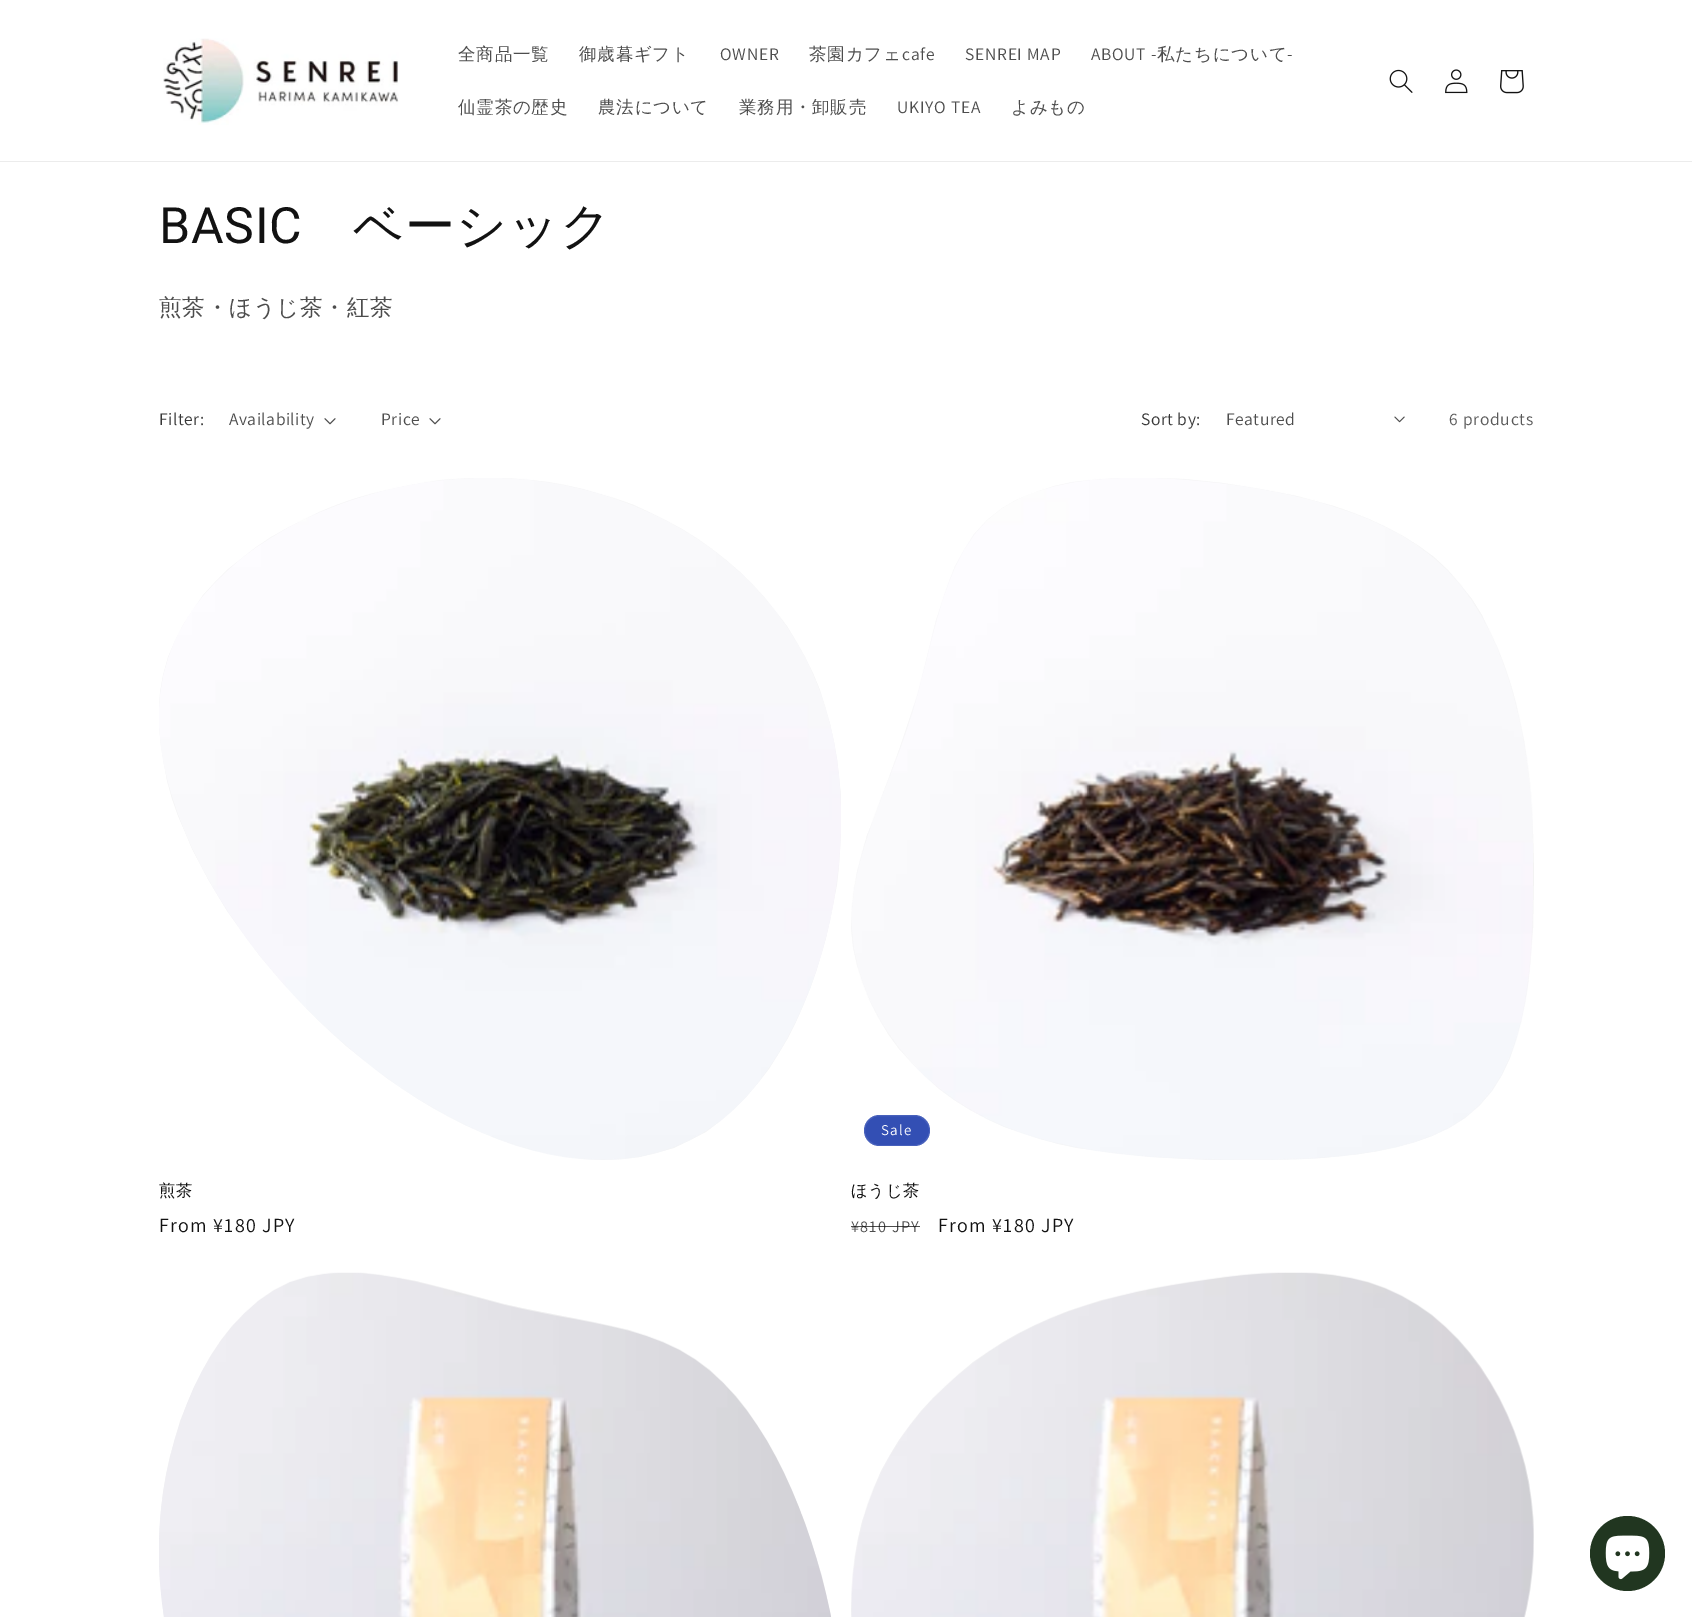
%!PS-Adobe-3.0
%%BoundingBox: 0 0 1692 1617
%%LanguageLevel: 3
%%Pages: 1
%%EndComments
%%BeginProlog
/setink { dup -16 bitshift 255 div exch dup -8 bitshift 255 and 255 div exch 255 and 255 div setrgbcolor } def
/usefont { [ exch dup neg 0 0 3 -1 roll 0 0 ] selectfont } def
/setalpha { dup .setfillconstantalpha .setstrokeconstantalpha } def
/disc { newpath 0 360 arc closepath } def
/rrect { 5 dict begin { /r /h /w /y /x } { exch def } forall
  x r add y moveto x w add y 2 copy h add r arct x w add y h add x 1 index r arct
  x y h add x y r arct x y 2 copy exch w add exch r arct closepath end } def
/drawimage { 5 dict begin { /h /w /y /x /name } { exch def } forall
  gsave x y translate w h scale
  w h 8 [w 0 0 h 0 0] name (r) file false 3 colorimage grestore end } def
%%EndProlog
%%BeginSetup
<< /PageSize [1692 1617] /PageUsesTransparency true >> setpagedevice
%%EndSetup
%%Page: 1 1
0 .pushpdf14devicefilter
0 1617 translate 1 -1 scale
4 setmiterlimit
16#FFFFFF setink
0 0 1692 1617 rectfill
16#ECECEC setink
0 161 1692 1 rectfill
(img1.raw) 163 38 236 87 drawimage
/WenQuanYiZenHei-Medium 17.5 usefont
16#4D4D4D setink
458 60 moveto 0.75 0 (全商品一覧) ashow
579 60 moveto 0.75 0 (御歳暮ギフト) ashow
/Assistant-Regular 17.5 usefont
720 60 moveto 0.75 0 (OWNER) ashow
/WenQuanYiZenHei-Medium 17.5 usefont
809 60 moveto 0.75 0 (茶園カフェ) ashow
/Assistant-Regular 17.5 usefont
902 60 moveto 0.75 0 (cafe) ashow
965 60 moveto 0.75 0 (SENREI MAP) ashow
1091 60 moveto 0.75 0 (ABOUT -) ashow
/WenQuanYiZenHei-Medium 17.5 usefont
1157 60 moveto 0.75 0 (私たちについて) ashow
/Assistant-Regular 17.5 usefont
1287 60 moveto 0.75 0 (-) ashow
/WenQuanYiZenHei-Medium 17.5 usefont
458 113 moveto 0.75 0 (仙霊茶の歴史) ashow
598 113 moveto 0.75 0 (農法について) ashow
739 113 moveto 0.75 0 (業務用・卸販売) ashow
/Assistant-Regular 17.5 usefont
897 113 moveto 0.75 0 (UKIYO TEA) ashow
/WenQuanYiZenHei-Medium 17.5 usefont
1011 113 moveto 0.75 0 (よみもの) ashow
(img2.raw) 1389 69 24 24 drawimage
(img3.raw) 1445 69 23 25 drawimage
(img4.raw) 1500 70 24 24 drawimage
/Roboto-Regular 50 usefont
16#121212 setink
159 243 moveto 0.75 0 (BASIC) ashow
/WenQuanYiZenHei-Medium 50 usefont
353 243 moveto 0.75 0 (ベーシック) ashow
/WenQuanYiZenHei-Medium 22.5 usefont
16#4D4D4D setink
159 315 moveto 0.75 0 (煎茶・ほうじ茶・紅茶) ashow
/Assistant-Regular 17.5 usefont
16#363636 setink
159 425 moveto 0.5 0 (Filter:) ashow
16#4D4D4D setink
229 425 moveto 0.5 0 (Availability) ashow
(img5.raw) 324 418 12 7 drawimage
381 425 moveto 0.5 0 (Price) ashow
(img5.raw) 429 418 12 7 drawimage
16#363636 setink
1141 425 moveto 0.5 0 (Sort by:) ashow
16#4D4D4D setink
1226 425 moveto 0.5 0 (Featured) ashow
(img6.raw) 1394 416 11 7 drawimage
16#595959 setink
1449 425 moveto 0.75 0 (6 products) ashow
16#F3F3F3 setink
825 707 moveto 820 690 lineto 813 673 lineto 805 657 lineto 796 641 lineto 787 626 lineto 776 612 lineto 765 598 lineto 753 585 lineto 740 572 lineto 726 560 lineto 712 549 lineto 698 539 lineto 682 529 lineto 667 521 lineto 651 513 lineto 634 505 lineto 617 499 lineto 600 494 lineto 583 489 lineto 565 485 lineto 548 482 lineto 530 480 lineto 506 478 lineto 469 478 lineto 440 480 lineto 422 483 lineto 405 486 lineto 387 490 lineto 370 494 lineto 353 499 lineto 336 505 lineto 319 512 lineto 303 520 lineto 287 528 lineto 271 537 lineto 256 547 lineto 242 558 lineto 228 569 lineto 215 582 lineto 203 595 lineto 193 610 lineto 183 625 lineto 175 641 lineto 168 657 lineto 163 675 lineto 160 692 lineto 159 708 lineto 159 728 lineto 161 746 lineto 164 764 lineto 167 781 lineto 172 799 lineto 178 816 lineto 185 832 lineto 192 849 lineto 209 881 lineto 227 911 lineto 238 926 lineto 259 955 lineto 282 982 lineto 307 1009 lineto 319 1021 lineto 346 1046 lineto 360 1057 lineto 388 1079 lineto 418 1099 lineto 433 1108 lineto 465 1125 lineto 481 1132 lineto 498 1139 lineto 515 1145 lineto 532 1150 lineto 550 1154 lineto 567 1157 lineto 585 1159 lineto 603 1160 lineto 621 1159 lineto 639 1157 lineto 656 1153 lineto 674 1148 lineto 690 1140 lineto 706 1132 lineto 720 1121 lineto 734 1109 lineto 746 1097 lineto 758 1083 lineto 769 1069 lineto 779 1053 lineto 788 1038 lineto 796 1022 lineto 803 1006 lineto 810 989 lineto 816 972 lineto 826 938 lineto 830 920 lineto 837 885 lineto 839 867 lineto 841 833 lineto 841 795 lineto 839 777 lineto 837 759 lineto 834 742 lineto 830 724 lineto closepath fill
(img7.raw) 159 478 682 682 drawimage
/WenQuanYiZenHei-Medium 16.25 usefont
16#121212 setink
159 1196 moveto 0.75 0 (煎茶) ashow
/Assistant-Regular 20 usefont
159 1232 moveto 1.25 0 (From ¥180 JPY) ashow
16#F3F3F3 setink
1434 557 moveto 1419 546 lineto 1403 536 lineto 1386 527 lineto 1369 519 lineto 1351 512 lineto 1334 506 lineto 1315 501 lineto 1297 496 lineto 1260 489 lineto 1223 483 lineto 1185 479 lineto 1159 478 lineto 1117 478 lineto 1091 480 lineto 1072 482 lineto 1054 486 lineto 1036 492 lineto 1018 499 lineto 1002 508 lineto 987 520 lineto 974 534 lineto 964 550 lineto 955 566 lineto 948 584 lineto 942 602 lineto 936 620 lineto 918 693 lineto 912 711 lineto 900 747 lineto 874 818 lineto 867 835 lineto 862 853 lineto 857 872 lineto 854 890 lineto 852 909 lineto 851 928 lineto 853 947 lineto 857 965 lineto 863 983 lineto 870 1001 lineto 878 1017 lineto 888 1034 lineto 899 1049 lineto 912 1063 lineto 925 1076 lineto 939 1089 lineto 954 1100 lineto 970 1110 lineto 987 1119 lineto 1004 1127 lineto 1022 1133 lineto 1040 1139 lineto 1058 1144 lineto 1077 1148 lineto 1114 1153 lineto 1152 1157 lineto 1208 1160 lineto 1265 1160 lineto 1303 1159 lineto 1322 1158 lineto 1359 1154 lineto 1378 1151 lineto 1396 1147 lineto 1415 1142 lineto 1432 1136 lineto 1449 1128 lineto 1465 1118 lineto 1480 1105 lineto 1492 1091 lineto 1502 1075 lineto 1510 1058 lineto 1516 1040 lineto 1521 1022 lineto 1525 1003 lineto 1528 985 lineto 1530 966 lineto 1533 928 lineto 1534 872 lineto 1533 834 lineto 1532 815 lineto 1529 777 lineto 1524 740 lineto 1516 703 lineto 1511 685 lineto 1505 667 lineto 1498 649 lineto 1490 632 lineto 1482 615 lineto 1472 599 lineto 1460 584 lineto 1448 570 lineto closepath fill
(img8.raw) 851 478 682 682 drawimage
16#334FB4 setink
864 1115 66 31 15.5 rrect fill
0.1 setalpha
16#FFFFFF setink
864.5 1115.5 65 30 15 rrect stroke
/Assistant-Regular 15 usefont
1 setalpha
881 1135 moveto 1.25 0 (Sale) ashow
/WenQuanYiZenHei-Medium 16.25 usefont
16#121212 setink
851 1196 moveto 0.75 0 (ほうじ茶) ashow
/Assistant-Regular 16.25 usefont
16#4D4D4D setink
851 1232 moveto 1.25 0 (¥810 JPY) ashow
0.75 setalpha
16#121212 setink
851 1226 69 1 rectfill
/Assistant-Regular 20 usefont
1 setalpha
938 1232 moveto 1.25 0 (From ¥180 JPY) ashow
16#F3F3F3 setink
695 1359 moveto 680 1350 lineto 663 1342 lineto 646 1336 lineto 629 1330 lineto 593 1322 lineto 522 1308 lineto 504 1304 lineto 451 1290 lineto 416 1281 lineto 398 1278 lineto 380 1275 lineto 362 1273 lineto 333 1273 lineto 325 1274 lineto 307 1277 lineto 290 1282 lineto 274 1290 lineto 258 1301 lineto 245 1313 lineto 232 1326 lineto 221 1340 lineto 211 1355 lineto 202 1371 lineto 194 1387 lineto 187 1404 lineto 180 1421 lineto 175 1439 lineto 170 1456 lineto 166 1474 lineto 163 1492 lineto 161 1510 lineto 159 1540 lineto 159 1565 lineto 160 1583 lineto 162 1601 lineto 164 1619 lineto 168 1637 lineto 172 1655 lineto 177 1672 lineto 183 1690 lineto 189 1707 lineto 197 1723 lineto 206 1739 lineto 215 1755 lineto 226 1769 lineto 238 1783 lineto 251 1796 lineto 265 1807 lineto 280 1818 lineto 296 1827 lineto 312 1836 lineto 328 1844 lineto 362 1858 lineto 430 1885 lineto 463 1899 lineto 513 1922 lineto 546 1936 lineto 564 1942 lineto 581 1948 lineto 599 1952 lineto 617 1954 lineto 635 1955 lineto 653 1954 lineto 671 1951 lineto 689 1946 lineto 706 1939 lineto 722 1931 lineto 738 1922 lineto 753 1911 lineto 767 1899 lineto 780 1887 lineto 792 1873 lineto 802 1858 lineto 812 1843 lineto 820 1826 lineto 827 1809 lineto 832 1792 lineto 836 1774 lineto 839 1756 lineto 840 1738 lineto 841 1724 lineto 841 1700 lineto 839 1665 lineto 833 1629 lineto 830 1611 lineto 822 1576 lineto 811 1541 lineto 805 1523 lineto 792 1490 lineto 784 1473 lineto 776 1457 lineto 767 1441 lineto 757 1425 lineto 747 1410 lineto 736 1396 lineto 723 1383 lineto 710 1370 lineto closepath fill
(img9.raw) 159 1272 672 345 drawimage
1402 1296 moveto 1385 1288 lineto 1368 1282 lineto 1351 1278 lineto 1333 1275 lineto 1315 1273 lineto 1271 1273 lineto 1243 1275 lineto 1190 1282 lineto 1155 1288 lineto 1137 1292 lineto 1102 1300 lineto 1068 1311 lineto 1051 1318 lineto 1035 1325 lineto 1019 1333 lineto 1003 1342 lineto 988 1352 lineto 973 1362 lineto 959 1374 lineto 946 1386 lineto 933 1398 lineto 921 1411 lineto 910 1425 lineto 899 1440 lineto 890 1455 lineto 881 1471 lineto 874 1488 lineto 868 1504 lineto 862 1522 lineto 858 1539 lineto 855 1557 lineto 853 1575 lineto 852 1592 lineto 851 1610 lineto 852 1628 lineto 853 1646 lineto 855 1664 lineto 858 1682 lineto 862 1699 lineto 867 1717 lineto 872 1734 lineto 878 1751 lineto 885 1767 lineto 892 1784 lineto 901 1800 lineto 910 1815 lineto 920 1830 lineto 930 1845 lineto 941 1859 lineto 954 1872 lineto 966 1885 lineto 980 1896 lineto 994 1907 lineto 1009 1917 lineto 1025 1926 lineto 1041 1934 lineto 1058 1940 lineto 1075 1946 lineto 1092 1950 lineto 1110 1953 lineto 1128 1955 lineto 1146 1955 lineto 1164 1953 lineto 1182 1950 lineto 1199 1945 lineto 1216 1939 lineto 1232 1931 lineto 1248 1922 lineto 1263 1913 lineto 1278 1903 lineto 1292 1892 lineto 1320 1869 lineto 1388 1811 lineto 1415 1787 lineto 1441 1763 lineto 1454 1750 lineto 1465 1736 lineto 1476 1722 lineto 1487 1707 lineto 1496 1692 lineto 1504 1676 lineto 1511 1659 lineto 1517 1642 lineto 1523 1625 lineto 1527 1607 lineto 1530 1590 lineto 1532 1572 lineto 1533 1554 lineto 1534 1536 lineto 1533 1518 lineto 1531 1500 lineto 1529 1482 lineto 1525 1465 lineto 1520 1448 lineto 1514 1431 lineto 1507 1414 lineto 1499 1398 lineto 1490 1382 lineto 1481 1367 lineto 1470 1353 lineto 1458 1339 lineto 1445 1327 lineto 1432 1315 lineto 1417 1305 lineto closepath fill
(img10.raw) 851 1272 683 345 drawimage
16#213620 setink
1627.5 1553.5 37.5 disc fill
(img11.raw) 1605 1535 45 45 drawimage
.poppdf14devicefilter showpage
%%EOF
